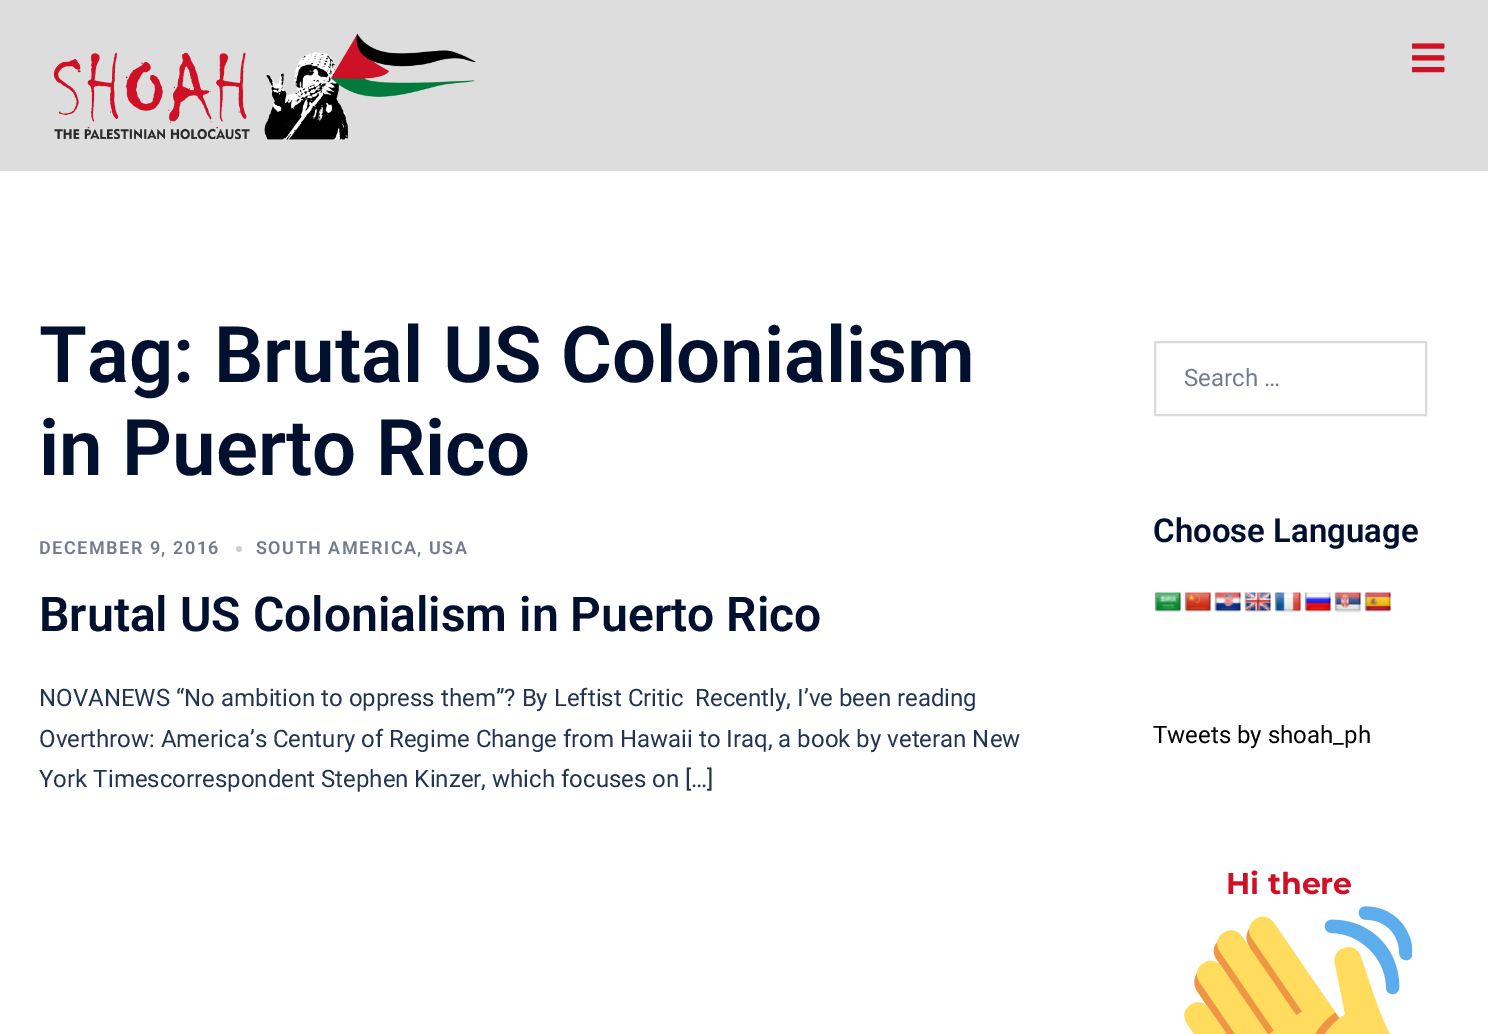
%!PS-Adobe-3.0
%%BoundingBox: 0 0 1488 1034
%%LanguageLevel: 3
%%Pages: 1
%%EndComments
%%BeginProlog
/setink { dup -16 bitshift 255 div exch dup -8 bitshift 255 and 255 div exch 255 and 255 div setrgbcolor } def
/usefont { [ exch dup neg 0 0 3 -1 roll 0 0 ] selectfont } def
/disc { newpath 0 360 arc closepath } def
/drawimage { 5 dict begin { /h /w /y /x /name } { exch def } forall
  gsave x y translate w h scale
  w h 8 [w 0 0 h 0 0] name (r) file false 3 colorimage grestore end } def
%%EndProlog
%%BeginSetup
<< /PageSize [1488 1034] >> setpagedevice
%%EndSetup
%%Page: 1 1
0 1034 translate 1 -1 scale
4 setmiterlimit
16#FFFFFF setink
0 0 1488 1034 rectfill
16#DDDDDD setink
0 0 1488 171 rectfill
(img1.raw) 54 33 422 107 drawimage
(img2.raw) 1412 43 33 30 drawimage
/Roboto-SemiBold 78 usefont
16#00102E setink
39 382 moveto (Tag: Brutal US Colonialism) show
39 475 moveto (in Puerto Rico) show
/Roboto-SemiBold 18 usefont
16#737C8C setink
39 554 moveto 1.5 0 (DECEMBER 9, 2016) ashow
16#CCCFD5 setink
239 549 3 disc fill
16#737C8C setink
256 554 moveto 1.5 0 (SOUTH AMERICA, USA) ashow
/Roboto-SemiBold 48 usefont
16#00102E setink
39 631 moveto (Brutal US Colonialism in Puerto Rico) show
/Roboto-Regular 24 usefont
16#233452 setink
[
    [(NOVANEWS “No ambition to oppress them”? By Leftist Critic  Recently, I’ve been reading) 39 706]
    [(Overthrow: America’s Century of Regime Change from Hawaii to Iraq, a book by veteran New) 39 747]
    [(York Timescorrespondent Stephen Kinzer, which focuses on […]) 39 787]
] { aload pop moveto show } forall
16#DBDBDB setink
2 setlinewidth
1155 342 271 73 rectstroke
16#737C8C setink
1184 386 moveto (Search …) show
/Roboto-SemiBold 33 usefont
16#00102E setink
1153 542 moveto (Choose Language) show
(img3.raw) 1154 592 27 21 drawimage
(img4.raw) 1184 592 27 21 drawimage
(img5.raw) 1214 592 27 21 drawimage
(img6.raw) 1244 592 27 21 drawimage
(img7.raw) 1274 592 27 21 drawimage
(img8.raw) 1304 592 27 21 drawimage
(img9.raw) 1334 592 27 21 drawimage
(img10.raw) 1364 592 27 21 drawimage
/Roboto-Regular 24 usefont
16#000000 setink
1153 743 moveto (Tweets by shoah_ph) show
/Montserrat-Bold 30 usefont
16#CE1126 setink
1226 894 moveto (Hi there) show
(img11.raw) 1184 906 228 128 drawimage
showpage
%%EOF
